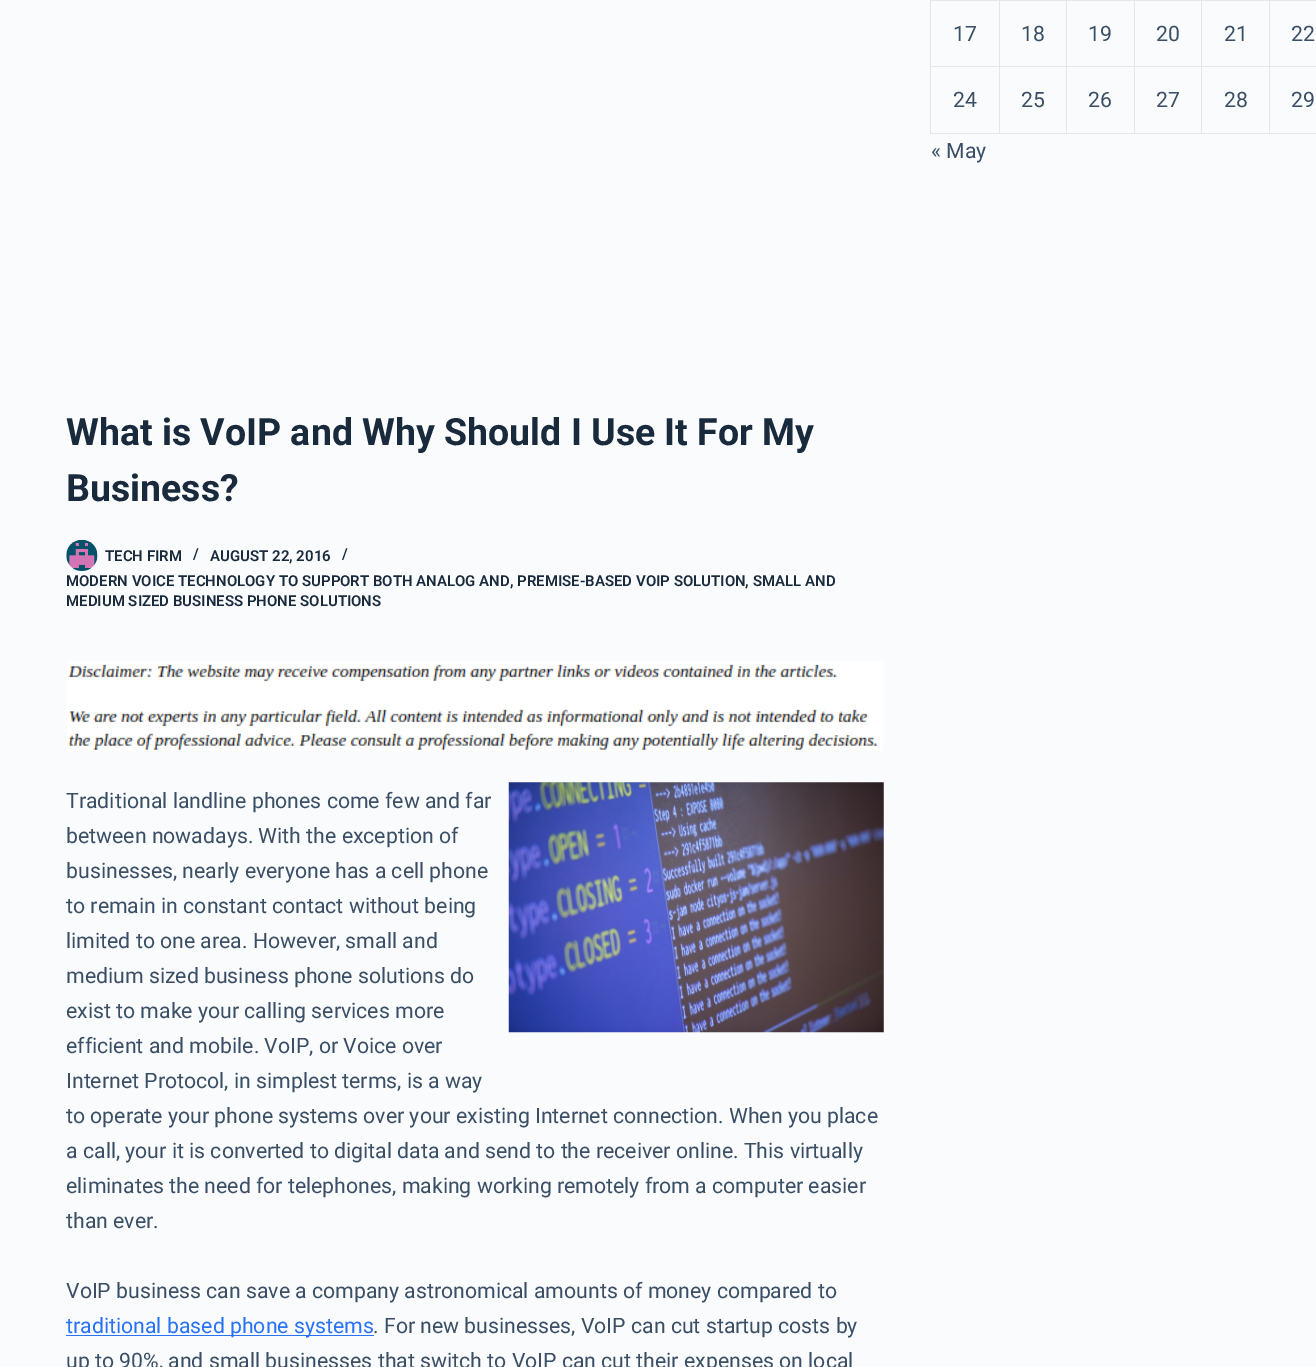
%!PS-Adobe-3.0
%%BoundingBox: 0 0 1316 1367
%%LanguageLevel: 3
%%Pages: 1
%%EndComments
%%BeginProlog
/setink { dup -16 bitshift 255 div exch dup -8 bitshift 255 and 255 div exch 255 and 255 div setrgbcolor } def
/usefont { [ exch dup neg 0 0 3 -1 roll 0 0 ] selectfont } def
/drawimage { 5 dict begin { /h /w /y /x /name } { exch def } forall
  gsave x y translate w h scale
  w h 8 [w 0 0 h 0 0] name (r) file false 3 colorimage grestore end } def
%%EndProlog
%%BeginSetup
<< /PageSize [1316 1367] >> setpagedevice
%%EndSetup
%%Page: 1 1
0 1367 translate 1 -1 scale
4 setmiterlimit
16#FAFBFC setink
0 0 1316 1367 rectfill
[
    [930 133 386 1 16#E1E8ED]
    [930 0 1 134 16#E1E8ED]
    [1269 0 47 1 16#E1E8ED]
    [1269 66 47 1 16#E1E8ED]
    [1269 66 1 68 16#E1E8ED]
    [1201 66 69 1 16#E1E8ED]
    [1269 0 1 68 16#E1E8ED]
    [1201 0 69 1 16#E1E8ED]
    [1201 66 1 68 16#E1E8ED]
    [1134 66 69 1 16#E1E8ED]
    [1201 0 1 68 16#E1E8ED]
    [1134 0 69 1 16#E1E8ED]
    [1134 66 1 68 16#E1E8ED]
    [1066 66 69 1 16#E1E8ED]
    [1134 0 1 68 16#E1E8ED]
    [1066 0 69 1 16#E1E8ED]
    [1066 66 1 68 16#E1E8ED]
    [999 66 69 1 16#E1E8ED]
    [1066 0 1 68 16#E1E8ED]
    [999 0 69 1 16#E1E8ED]
    [999 66 1 68 16#E1E8ED]
    [930 66 70 1 16#E1E8ED]
    [999 0 1 68 16#E1E8ED]
    [930 0 70 1 16#E1E8ED]
] { aload pop setink rectfill } forall
/Roboto-Regular 21.25 usefont
16#3A4F66 setink
[
    [(17) 953 41]
    [(18) 1021 41]
    [(19) 1088 41]
    [(20) 1156 41]
    [(21) 1224 41]
    [(22) 1291 41]
    [(24) 953 107]
    [(25) 1021 107]
    [(26) 1088 107]
    [(27) 1156 107]
    [(28) 1224 107]
    [(29) 1291 107]
    [(« May) 931 158]
] { aload pop moveto show } forall
/Roboto-Bold 37.5 usefont
16#192A3D setink
66 445 moveto (What is VoIP and Why Should I Use It For My) show
66 501 moveto (Business?) show
(img1.raw) 66 539 32 32 drawimage
/Roboto-SemiBold 15 usefont
[
    [(TECH FIRM) 105 561]
    [(/) 193 559]
    [(AUGUST 22, 2016) 210 561]
    [(/) 342 559]
    [(MODERN VOICE TECHNOLOGY TO SUPPORT BOTH ANALOG AND, PREMISE-BASED VOIP SOLUTION, SMALL AND) 66 586]
    [(MEDIUM SIZED BUSINESS PHONE SOLUTIONS) 66 606]
] { aload pop moveto show } forall
(img2.raw) 67 661 816 90 drawimage
(img3.raw) 508 782 376 251 drawimage
/Roboto-Regular 21.25 usefont
16#3A4F66 setink
[
    [(Traditional landline phones come few and far) 66 808]
    [(between nowadays. With the exception of) 66 843]
    [(businesses, nearly everyone has a cell phone) 66 878]
    [(to remain in constant contact without being) 66 913]
    [(limited to one area. However, small and) 66 948]
    [(medium sized business phone solutions do) 66 983]
    [(exist to make your calling services more) 66 1018]
    [(efficient and mobile. VoIP, or Voice over) 66 1053]
    [(Internet Protocol, in simplest terms, is a way) 66 1088]
    [(to operate your phone systems over your existing Internet connection. When you place) 66 1123]
    [(a call, your it is converted to digital data and send to the receiver online. This virtually) 66 1158]
    [(eliminates the need for telephones, making working remotely from a computer easier) 66 1193]
    [(than ever.) 66 1228]
    [(VoIP business can save a company astronomical amounts of money compared to) 66 1298]
] { aload pop moveto show } forall
16#2872FA setink
66 1335 308 1 rectfill
66 1333 moveto (traditional based phone systems) show
16#3A4F66 setink
373 1333 moveto (. For new businesses, VoIP can cut startup costs by) show
66 1368 moveto (up to 90%, and small businesses that switch to VoIP can cut their expenses on local) show
showpage
%%EOF
